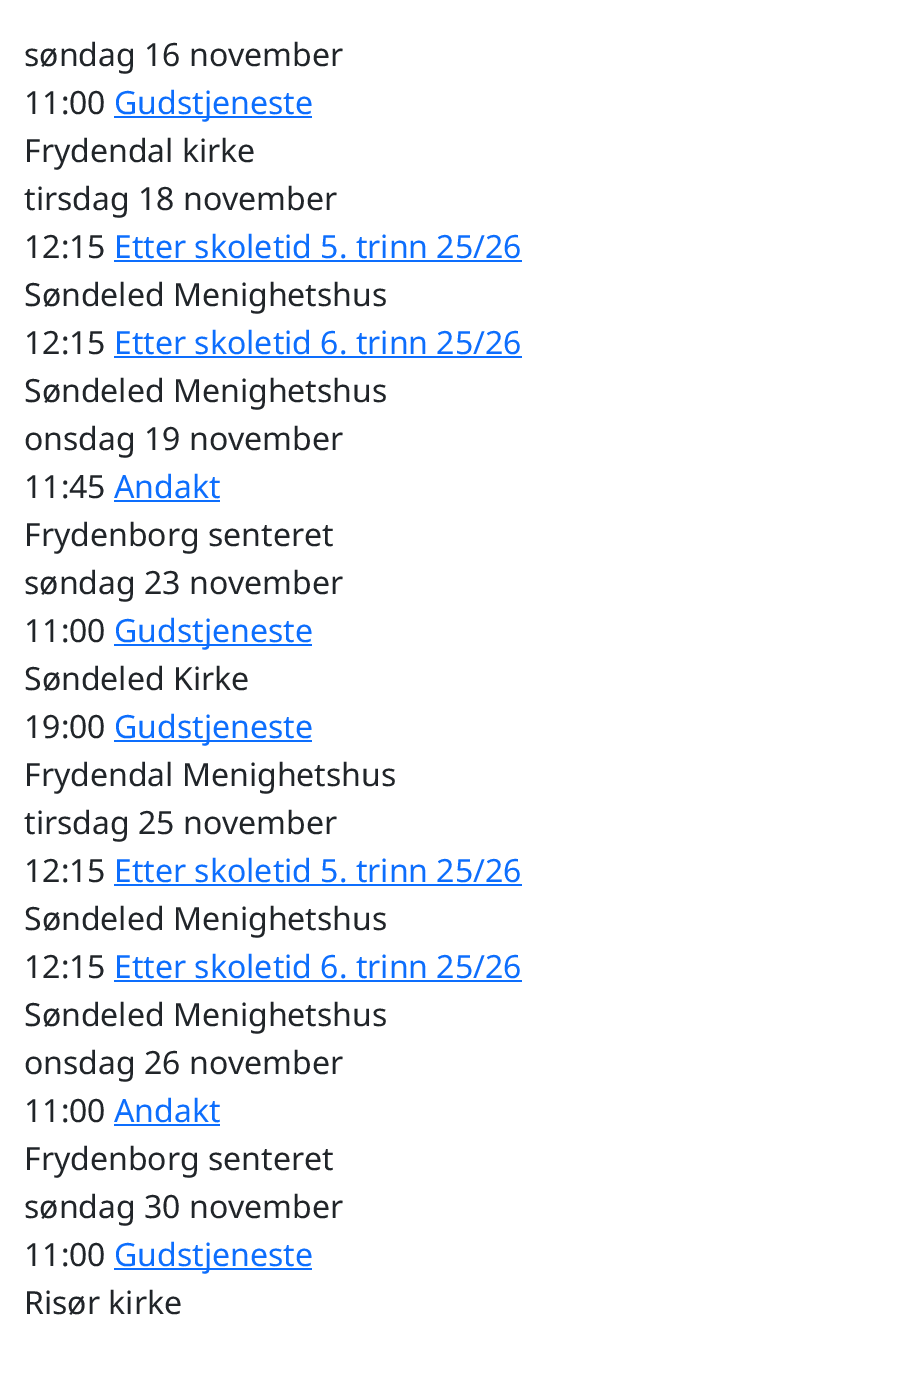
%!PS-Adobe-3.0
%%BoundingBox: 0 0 917 1386
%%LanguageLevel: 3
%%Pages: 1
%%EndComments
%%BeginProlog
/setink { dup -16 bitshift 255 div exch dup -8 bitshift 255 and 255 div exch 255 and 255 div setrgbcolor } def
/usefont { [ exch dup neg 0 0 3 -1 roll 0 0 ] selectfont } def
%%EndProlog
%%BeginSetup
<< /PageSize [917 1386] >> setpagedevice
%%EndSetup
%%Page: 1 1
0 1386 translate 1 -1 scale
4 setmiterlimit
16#FFFFFF setink
0 0 917 1386 rectfill
/NotoSans-Regular 32 usefont
16#212529 setink
24 66 moveto (søndag 16 november) show
24 114 moveto (11:00) show
16#0D6EFD setink
114 116 198 2 rectfill
114 114 moveto (Gudstjeneste) show
16#212529 setink
[
    [(Frydendal kirke) 24 162]
    [(tirsdag 18 november) 24 210]
    [(12:15) 24 258]
] { aload pop moveto show } forall
16#0D6EFD setink
114 258 moveto (Etter skoletid 5. trinn 25/26) show
114 260 408 2 rectfill
16#212529 setink
24 306 moveto (Søndeled Menighetshus) show
24 354 moveto (12:15) show
16#0D6EFD setink
114 354 moveto (Etter skoletid 6. trinn 25/26) show
114 356 408 2 rectfill
16#212529 setink
[
    [(Søndeled Menighetshus) 24 402]
    [(onsdag 19 november) 24 450]
    [(11:45) 24 498]
] { aload pop moveto show } forall
16#0D6EFD setink
114 498 moveto (Andakt) show
114 500 106 2 rectfill
16#212529 setink
[
    [(Frydenborg senteret) 24 546]
    [(søndag 23 november) 24 594]
    [(11:00) 24 642]
] { aload pop moveto show } forall
16#0D6EFD setink
114 644 198 2 rectfill
114 642 moveto (Gudstjeneste) show
16#212529 setink
24 690 moveto (Søndeled Kirke) show
24 738 moveto (19:00) show
16#0D6EFD setink
114 740 198 2 rectfill
114 738 moveto (Gudstjeneste) show
16#212529 setink
[
    [(Frydendal Menighetshus) 24 786]
    [(tirsdag 25 november) 24 834]
    [(12:15) 24 882]
] { aload pop moveto show } forall
16#0D6EFD setink
114 882 moveto (Etter skoletid 5. trinn 25/26) show
114 884 408 2 rectfill
16#212529 setink
24 930 moveto (Søndeled Menighetshus) show
24 978 moveto (12:15) show
16#0D6EFD setink
114 978 moveto (Etter skoletid 6. trinn 25/26) show
114 980 408 2 rectfill
16#212529 setink
[
    [(Søndeled Menighetshus) 24 1026]
    [(onsdag 26 november) 24 1074]
    [(11:00) 24 1122]
] { aload pop moveto show } forall
16#0D6EFD setink
114 1122 moveto (Andakt) show
114 1124 106 2 rectfill
16#212529 setink
[
    [(Frydenborg senteret) 24 1170]
    [(søndag 30 november) 24 1218]
    [(11:00) 24 1266]
] { aload pop moveto show } forall
16#0D6EFD setink
114 1268 198 2 rectfill
114 1266 moveto (Gudstjeneste) show
16#212529 setink
24 1314 moveto (Risør kirke) show
showpage
%%EOF
